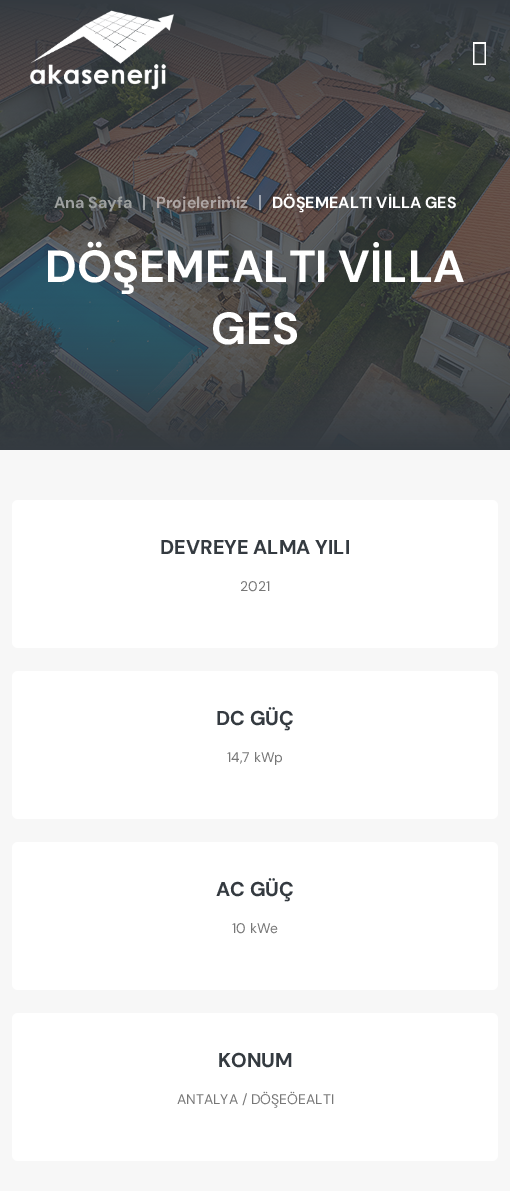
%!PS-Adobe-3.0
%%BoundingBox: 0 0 510 1191
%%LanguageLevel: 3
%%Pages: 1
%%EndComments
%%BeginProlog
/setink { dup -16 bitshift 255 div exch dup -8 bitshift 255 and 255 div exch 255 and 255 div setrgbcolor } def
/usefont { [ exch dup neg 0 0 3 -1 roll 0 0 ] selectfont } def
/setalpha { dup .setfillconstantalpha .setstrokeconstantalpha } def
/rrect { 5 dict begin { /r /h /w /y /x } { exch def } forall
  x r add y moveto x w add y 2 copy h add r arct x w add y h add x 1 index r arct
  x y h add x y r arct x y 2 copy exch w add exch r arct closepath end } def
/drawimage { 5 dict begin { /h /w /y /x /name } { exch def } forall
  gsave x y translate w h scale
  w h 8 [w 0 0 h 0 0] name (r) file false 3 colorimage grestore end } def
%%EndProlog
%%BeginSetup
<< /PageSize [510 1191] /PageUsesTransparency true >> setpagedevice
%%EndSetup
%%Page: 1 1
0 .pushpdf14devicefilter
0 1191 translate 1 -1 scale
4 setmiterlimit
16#F7F7F7 setink
0 0 510 1191 rectfill
(img2.raw) 0 0 510 450 drawimage
(img1.raw) 30 10 144 80 drawimage
16#FFFFFF setink
473 65 moveto 473 42 lineto 486 42 lineto 486 65 lineto closepath 474.5 63.5 moveto 484.5 63.5 lineto 484.5 44 lineto 474.5 44 lineto closepath fill
/DMSans-Bold 16 usefont
16#9DA09F setink
54 208 moveto (Ana Sayfa) show
0.5 setalpha
16#FFFFFF setink
143 195 2 15 rectfill
1 setalpha
16#ADA5A3 setink
156 208 moveto (Projelerimiz) show
0.5 setalpha
16#FFFFFF setink
259 195 2 15 rectfill
1 setalpha
272 208 moveto (DÖŞEMEALTI VİLLA GES) show
/DMSans-Bold 45 usefont
45 282 moveto (DÖŞEMEALTI VİLLA) show
211 344 moveto (GES) show
12 500 486 148 6 rrect fill
/DMSans-Bold 20 usefont
16#343A40 setink
160 554 moveto (DEVREYE ALMA YILI) show
/DMSans-Regular 14 usefont
16#777777 setink
240 591 moveto (2021) show
16#FFFFFF setink
12 671 486 148 6 rrect fill
/DMSans-Bold 20 usefont
16#343A40 setink
216 725 moveto (DC GÜÇ) show
/DMSans-Regular 14 usefont
16#777777 setink
227 762 moveto (14,7 kWp) show
16#FFFFFF setink
12 842 486 148 6 rrect fill
/DMSans-Bold 20 usefont
16#343A40 setink
216 896 moveto (AC GÜÇ) show
/DMSans-Regular 14 usefont
16#777777 setink
232 933 moveto (10 kWe) show
16#FFFFFF setink
12 1013 486 148 6 rrect fill
/DMSans-Bold 20 usefont
16#343A40 setink
218 1067 moveto (KONUM) show
/DMSans-Regular 14 usefont
16#777777 setink
177 1104 moveto (ANTALYA / DÖŞEÖEALTI) show
.poppdf14devicefilter showpage
%%EOF
